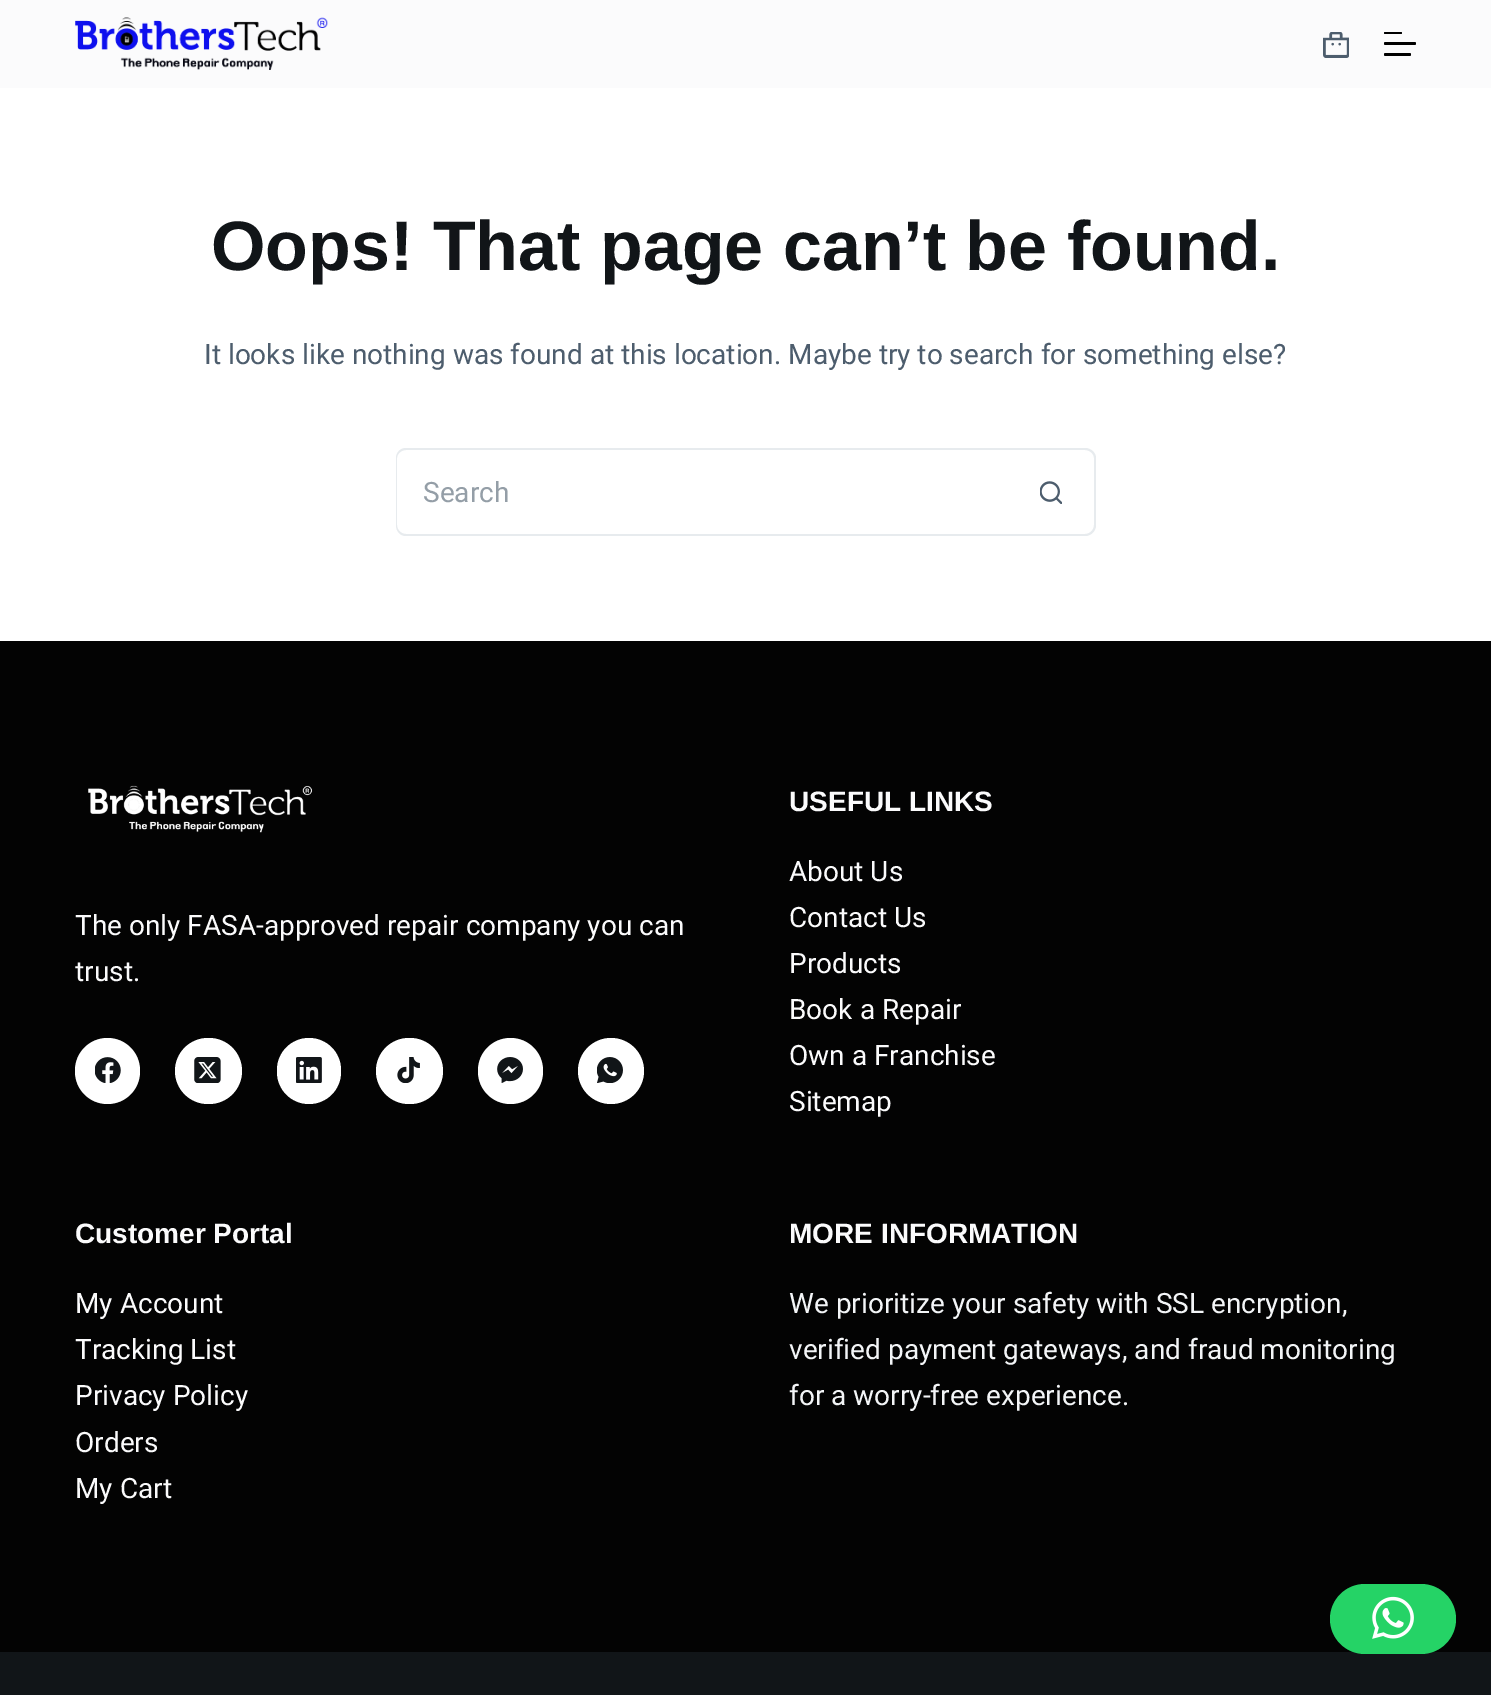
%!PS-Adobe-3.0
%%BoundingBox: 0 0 1491 1695
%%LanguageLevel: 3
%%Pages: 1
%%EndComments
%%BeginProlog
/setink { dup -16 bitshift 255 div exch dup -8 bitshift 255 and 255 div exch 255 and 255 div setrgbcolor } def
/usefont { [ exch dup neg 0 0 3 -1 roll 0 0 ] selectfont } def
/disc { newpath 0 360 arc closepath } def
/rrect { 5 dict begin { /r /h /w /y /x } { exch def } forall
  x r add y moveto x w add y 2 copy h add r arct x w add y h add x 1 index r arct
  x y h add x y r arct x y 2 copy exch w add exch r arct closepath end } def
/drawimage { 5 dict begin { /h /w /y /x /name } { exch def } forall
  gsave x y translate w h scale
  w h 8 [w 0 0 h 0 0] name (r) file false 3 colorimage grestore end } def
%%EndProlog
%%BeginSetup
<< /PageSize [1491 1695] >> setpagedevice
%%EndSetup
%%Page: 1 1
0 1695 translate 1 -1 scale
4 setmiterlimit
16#FFFFFF setink
0 0 1491 1695 rectfill
16#FBFBFC setink
0 0 1491 88 rectfill
(img1.raw) 75 17 253 53 drawimage
(img2.raw) 1323 32 26 26 drawimage
16#000000 setink
1384 32 18 2 1 rrect fill
1384 42 32 3 1.5 rrect fill
1384 53 27 3 1.5 rrect fill
/LiberationSans-Bold 70 usefont
16#111518 setink
211 270 moveto (Oops! That page can’t be found.) show
/Roboto-Regular 28 usefont
16#4D5D6D setink
204 364 moveto (It looks like nothing was found at this location. Maybe try to search for something else?) show
16#E7EBEE setink
406 448 moveto 1008 448 lineto 1008 536 lineto 406 536 lineto 400 536 396 531 396 525 curveto 396 458 lineto 396 453 400 448 406 448 curveto closepath 406 450 moveto 1008 450 lineto 1008 534 lineto 406 534 lineto 401 534 397 530 397 525 curveto 397 458 lineto 397 454 401 450 406 450 curveto closepath eofill
16#949EA7 setink
423 502 moveto (Search) show
16#E7EBEE setink
1008 448 moveto 1085 448 lineto 1091 448 1096 453 1096 458 curveto 1096 525 lineto 1096 531 1091 536 1085 536 curveto 1008 536 lineto closepath 1008 450 moveto 1085 450 lineto 1090 450 1094 454 1094 458 curveto 1094 525 lineto 1094 530 1090 534 1085 534 curveto 1008 534 lineto closepath eofill
(img3.raw) 1040 481 22 23 drawimage
16#111518 setink
0 1652 1491 43 rectfill
16#030303 setink
0 641 1491 1011 rectfill
(img4.raw) 88 785 224 48 drawimage
16#FBFBFC setink
75 935 moveto (The only FASA-approved repair company you can) show
75 981 moveto (trust.) show
16#FFFFFF setink
75 1038 65 66 32.5 rrect fill
(img5.raw) 95 1057 26 26 drawimage
175 1038 67 66 33 rrect fill
(img6.raw) 194 1057 27 26 drawimage
277 1038 64 66 32 rrect fill
(img7.raw) 296 1057 26 26 drawimage
376 1038 67 66 33 rrect fill
(img8.raw) 397 1057 23 26 drawimage
478 1038 65 66 32.5 rrect fill
(img9.raw) 497 1057 26 26 drawimage
611 1071 33 disc fill
(img10.raw) 597 1057 26 26 drawimage
/LiberationSans-Bold 28 usefont
16#FBFBFC setink
789 811 moveto (USEFUL LINKS) show
/Roboto-Regular 28 usefont
[
    [(About Us) 789 881]
    [(Contact Us) 789 927]
    [(Products) 789 973]
    [(Book a Repair) 789 1019]
    [(Own a Franchise) 789 1065]
    [(Sitemap) 789 1111]
] { aload pop moveto show } forall
/LiberationSans-Bold 28 usefont
75 1243 moveto (Customer Portal) show
/Roboto-Regular 28 usefont
[
    [(My Account) 75 1313]
    [(Tracking List) 75 1359]
    [(Privacy Policy) 75 1405]
    [(Orders) 75 1452]
    [(My Cart) 75 1498]
] { aload pop moveto show } forall
/LiberationSans-Bold 28 usefont
789 1243 moveto (MORE INFORMATION) show
/Roboto-Regular 28 usefont
16#F3F5F7 setink
[
    [(We prioritize your safety with SSL encryption,) 789 1313]
    [(verified payment gateways, and fraud monitoring) 789 1359]
    [(for a worry-free experience.) 789 1405]
] { aload pop moveto show } forall
16#25D366 setink
1330 1584 126 70 35 rrect fill
(img11.raw) 1372 1596 42 43 drawimage
showpage
%%EOF
